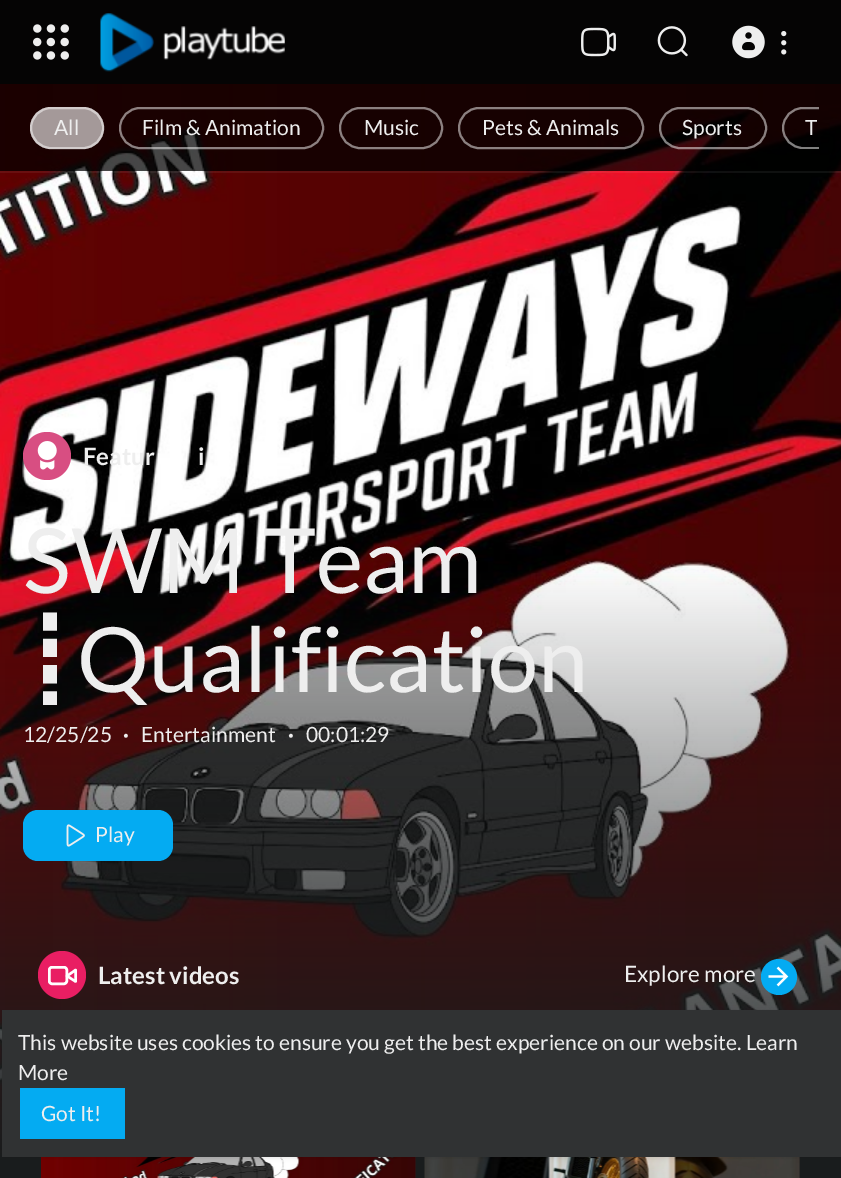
%!PS-Adobe-3.0
%%BoundingBox: 0 0 841 1178
%%LanguageLevel: 3
%%Pages: 1
%%EndComments
%%BeginProlog
/setink { dup -16 bitshift 255 div exch dup -8 bitshift 255 and 255 div exch 255 and 255 div setrgbcolor } def
/usefont { [ exch dup neg 0 0 3 -1 roll 0 0 ] selectfont } def
/setalpha { dup .setfillconstantalpha .setstrokeconstantalpha } def
/disc { newpath 0 360 arc closepath } def
/rrect { 5 dict begin { /r /h /w /y /x } { exch def } forall
  x r add y moveto x w add y 2 copy h add r arct x w add y h add x 1 index r arct
  x y h add x y r arct x y 2 copy exch w add exch r arct closepath end } def
/softshadow { 12 dict begin { /a /b /q /h /w /y /x } { exch def } forall gsave /was 0 def
  9 -2 -9 { dup b mul 4 div /e exch def 1 sub .425 mul 2.718 exch exp 1 add a .99 .min exch div /now exch def
    1 1 now sub 1 was sub div sub setalpha /was now def
    w h .min e 2 mul add 0 gt { x e sub y e sub w e 2 mul add h e 2 mul add
      q e add b .6 mul add w h .min 2 div e add .min 0 .max rrect fill } if } for grestore end } def
/drawimage { 5 dict begin { /h /w /y /x /name } { exch def } forall
  gsave x y translate w h scale
  w h 8 [w 0 0 h 0 0] name (r) file false 3 colorimage grestore end } def
%%EndProlog
%%BeginSetup
<< /PageSize [841 1178] /PageUsesTransparency true >> setpagedevice
%%EndSetup
%%Page: 1 1
0 .pushpdf14devicefilter
0 1178 translate 1 -1 scale
4 setmiterlimit
16#191C1D setink
0 0 841 1178 rectfill
16#050404 setink
0 0 841 84 rectfill
(img1.raw) 33 24 36 36 drawimage
(img2.raw) 100 13 185 59 drawimage
(img3.raw) 581 27 35 30 drawimage
(img4.raw) 657 26 31 31 drawimage
(img5.raw) 732 25 33 34 drawimage
(img6.raw) 781 31 6 24 drawimage
(img7.raw) 0 84 841 1077 drawimage
0.06 setalpha
16#FFFFFF setink
0 171 moveto 0 173 lineto 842 173 lineto 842 86 lineto 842 171 lineto closepath fill
0.72 setalpha
16#000000 setink
0 84 841 87 rectfill
1 setalpha
16#A49999 setink
30 107 74 42 21 rrect fill
0.5 setalpha
16#FFFFFF setink
2 setlinewidth
31 108 72 40 20 rrect stroke
/Lato-Regular 21 usefont
1 setalpha
16#EEEEEE setink
54 135 moveto (All) show
0.5 setalpha
16#FFFFFF setink
120 108 203 40 20 rrect stroke
1 setalpha
16#EEEEEE setink
142 135 moveto (Film & Animation) show
16#8B8080 setink
340 108 102 40 20 rrect stroke
16#EEEEEE setink
364 135 moveto (Music) show
0.5 setalpha
16#FFFFFF setink
459 108 184 40 20 rrect stroke
1 setalpha
16#EEEEEE setink
482 135 moveto (Pets & Animals) show
0.5 setalpha
16#FFFFFF setink
660 108 106 40 20 rrect stroke
1 setalpha
16#EEEEEE setink
682 135 moveto (Sports) show
gsave
23 107 796 42 rectclip
0.5 setalpha
16#FFFFFF setink
783 108 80 40 20 rrect stroke
grestore
805 135 moveto (T) show
16#D84E82 setink
47 456 24 disc fill
(img8.raw) 37 441 20 29 drawimage
/Lato-Bold 24 usefont
16#EEEEEE setink
83 465 moveto (Featur) show
198 465 moveto (i) show
/Lato-Regular 90 usefont
23 593 moveto (SWM Team) show
gsave
23 510 751 195 rectclip
/DejaVuSans-Regular 90 usefont
23 692 moveto (┋) show
/Lato-Regular 90 usefont
77 692 moveto (Qualification) show
grestore
/Lato-Regular 21 usefont
23 742 moveto (12/25/25) show
/Lato-Bold 21 usefont
123 742 moveto (·) show
/Lato-Regular 21 usefont
141 742 moveto (Entertainment) show
/Lato-Bold 21 usefont
288 742 moveto (·) show
/Lato-Regular 21 usefont
306 742 moveto (00:01:29) show
16#04ABF2 setink
23 810 150 51 15 rrect fill
(img9.raw) 66 824 19 23 drawimage
16#EEEEEE setink
95 842 moveto (Play) show
16#E91E63 setink
62 975 24 disc fill
16#FFFFFF setink
2.4 setlinewidth
1 setlinecap
1 setlinejoin
75.5 970 moveto 67 976 lineto 75.5 981.5 lineto closepath stroke
2.5 setlinewidth
0 setlinecap
0 setlinejoin
49.25 967.25 17.5 16.5 2.75 rrect stroke
/Lato-Bold 24 usefont
16#EEEEEE setink
98 984 moveto (Latest videos) show
/Lato-Regular 22.5 usefont
624 982 moveto (Explore more) show
16#04ABF2 setink
779 977 18 disc fill
(img10.raw) 768 966 21 21 drawimage
16#212121 setink
415 1157 1 21 rectfill
(img11.raw) 41 1157 375 21 drawimage
799 1157 1 21 rectfill
(img12.raw) 424 1157 376 21 drawimage
16#000000 setink
2 1011 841 147 0 2 0.1 softshadow
16#303233 setink
2 1010 839 147 rectfill
/Lato-Regular 21 usefont
16#EEEEEE setink
18 1050 moveto (This website uses cookies to ensure you get the best experience on our website. Learn) show
18 1080 moveto (More) show
16#04ABF2 setink
20 1088 105 51 rectfill
16#EEEEEE setink
41 1121 moveto (Got It!) show
.poppdf14devicefilter showpage
%%EOF
